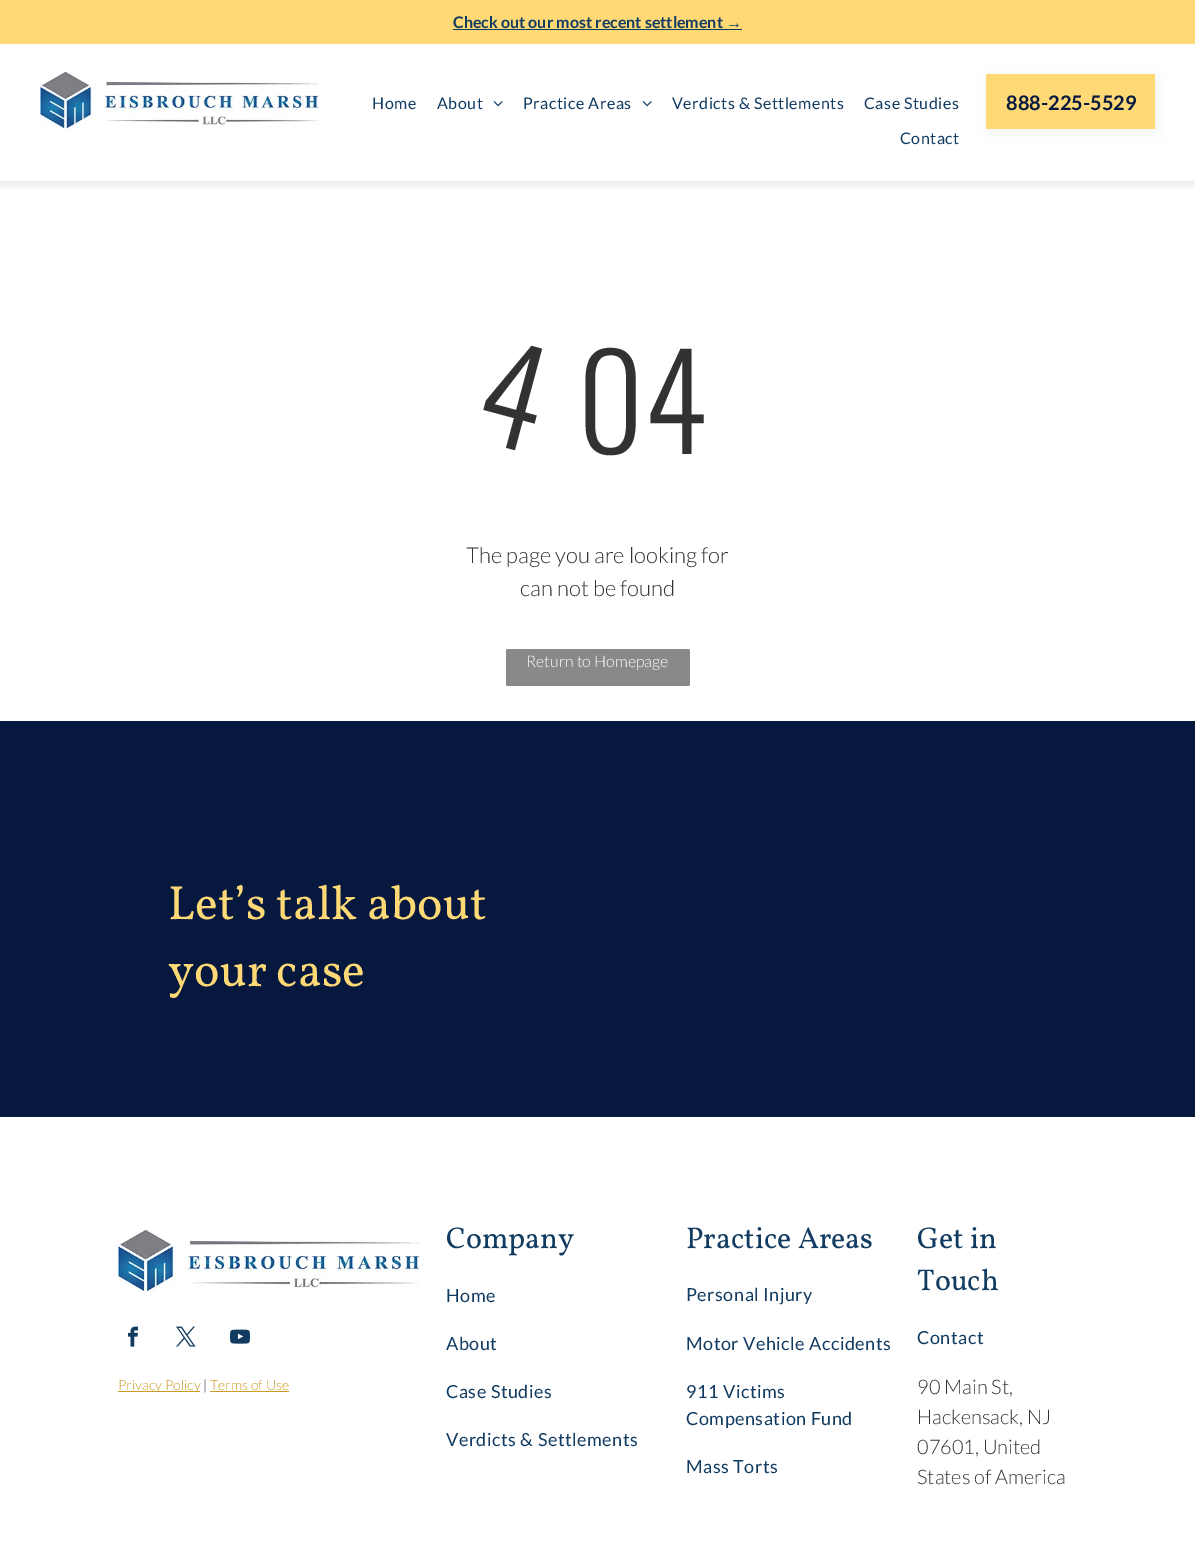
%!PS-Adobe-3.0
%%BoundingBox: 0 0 1195 1542
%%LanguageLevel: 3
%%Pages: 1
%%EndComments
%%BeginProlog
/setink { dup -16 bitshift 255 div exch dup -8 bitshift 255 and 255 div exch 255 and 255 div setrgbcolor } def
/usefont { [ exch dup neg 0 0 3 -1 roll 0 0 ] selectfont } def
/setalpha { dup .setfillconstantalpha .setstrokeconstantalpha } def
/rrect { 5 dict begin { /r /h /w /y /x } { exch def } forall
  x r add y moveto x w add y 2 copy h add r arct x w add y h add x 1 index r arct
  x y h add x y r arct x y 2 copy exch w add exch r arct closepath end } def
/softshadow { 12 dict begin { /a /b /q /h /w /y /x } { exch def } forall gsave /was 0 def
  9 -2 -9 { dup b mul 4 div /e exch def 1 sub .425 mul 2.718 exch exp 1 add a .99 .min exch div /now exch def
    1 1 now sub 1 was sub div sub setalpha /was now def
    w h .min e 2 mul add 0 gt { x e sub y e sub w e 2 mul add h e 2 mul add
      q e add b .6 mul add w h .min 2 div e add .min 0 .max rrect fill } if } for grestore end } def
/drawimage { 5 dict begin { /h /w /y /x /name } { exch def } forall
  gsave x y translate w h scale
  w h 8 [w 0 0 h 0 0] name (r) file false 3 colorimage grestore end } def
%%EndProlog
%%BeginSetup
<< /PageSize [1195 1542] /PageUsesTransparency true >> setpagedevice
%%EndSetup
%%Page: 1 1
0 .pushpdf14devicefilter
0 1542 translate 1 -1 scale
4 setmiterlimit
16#FFFFFF setink
0 0 1195 1542 rectfill
gsave
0 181 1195 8 rectclip
16#000000 setink
0 3 1195 181 0 5.5 0.1 softshadow
grestore
16#FED976 setink
0 0 1195 44 rectfill
/Lato-Bold 16 usefont
16#113B61 setink
453 28 moveto (Check out our most recent settlement) show
/LiberationSerif-Bold 16 usefont
726 28 moveto (→) show
453 29 289 1 rectfill
(img1.raw) 40 71 279 58 drawimage
/Lato-Regular 16 usefont
372 109 moveto 0.5 0 (Home) ashow
437 109 moveto 0.5 0 (About) ashow
(img2.raw) 493 101 10 6 drawimage
523 109 moveto 0.5 0 (Practice Areas) ashow
(img2.raw) 642 101 10 6 drawimage
672 109 moveto 0.5 0 (Verdicts & Settlements) ashow
864 109 moveto 0.5 0 (Case Studies) ashow
900 144 moveto 0.5 0 (Contact) ashow
16#7D7F81 setink
989 77 169 55 0 5.5 0.1 softshadow
16#FED976 setink
986 74 169 55 rectfill
/Lato-Bold 20 usefont
16#06183E setink
1006 110 moveto (888-225-5529) show
/Oswald-Light 130 usefont
16#323234 setink
gsave 469 438 translate 15 rotate 0 0 moveto (4) show grestore
577 454 moveto (04) show
/Lato-Light 22 usefont
466 563 moveto (The page you are looking for) show
520 596 moveto (can not be found) show
16#898989 setink
506 649 184 37 2 rrect fill
/Lato-Light 16 usefont
16#FFFFFF setink
526 667 moveto (Return to Homepage) show
16#06183E setink
0 721 1195 396 rectfill
/Vollkorn-Regular 48 usefont
16#FED976 setink
168 919 moveto (Let’s talk about) show
168 986 moveto (your case) show
(img3.raw) 118 1229 302 63 drawimage
(img4.raw) 128 1326 10 21 drawimage
(img5.raw) 176 1326 20 21 drawimage
(img6.raw) 230 1329 20 15 drawimage
16#CB9C24 setink
118 1391 82 1 rectfill
/Lato-Light 14 usefont
118 1390 moveto (Privacy Policy) show
16#06183E setink
203 1390 moveto (|) show
16#CB9C24 setink
210 1390 moveto (Terms of Use) show
210 1391 79 1 rectfill
/Vollkorn-Regular 30 usefont
16#113B61 setink
446 1248 moveto (Company) show
/Lato-Regular 18 usefont
446 1302 moveto 0.5 0 (Home) ashow
446 1350 moveto 0.5 0 (About) ashow
446 1398 moveto 0.5 0 (Case Studies) ashow
446 1446 moveto 0.5 0 (Verdicts & Settlements) ashow
/Vollkorn-Regular 30 usefont
686 1248 moveto (Practice Areas) show
/Lato-Regular 18 usefont
686 1301 moveto 0.5 0 (Personal Injury) ashow
686 1350 moveto 0.5 0 (Motor Vehicle Accidents) ashow
686 1398 moveto 0.5 0 (911 Victims) ashow
686 1425 moveto 0.5 0 (Compensation Fund) ashow
686 1473 moveto 0.5 0 (Mass Torts) ashow
/Vollkorn-Regular 30 usefont
917 1248 moveto (Get in) show
917 1290 moveto (Touch) show
/Lato-Regular 18 usefont
917 1344 moveto 0.5 0 (Contact) ashow
/Lato-Light 20 usefont
16#323234 setink
[
    [(90 Main St,) 917 1394]
    [(Hackensack, NJ) 917 1424]
    [(07601, United) 917 1454]
    [(States of America) 917 1484]
] { aload pop moveto show } forall
.poppdf14devicefilter showpage
%%EOF
